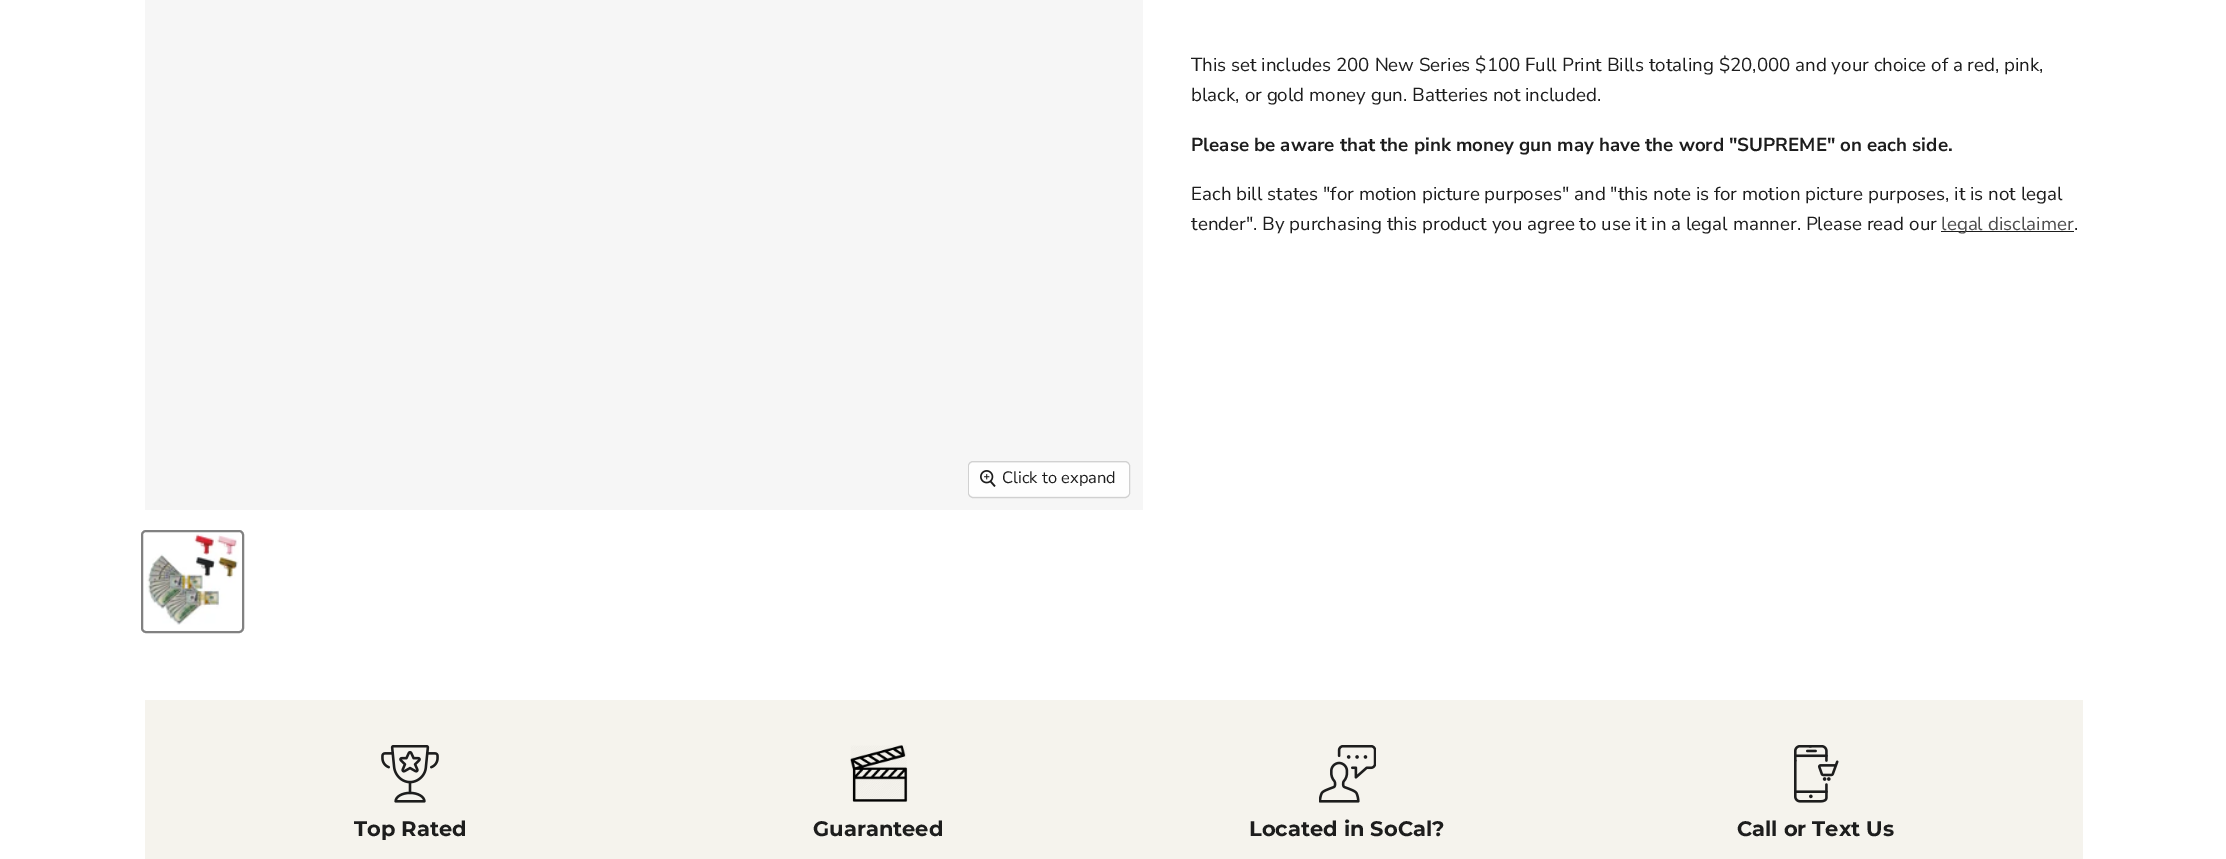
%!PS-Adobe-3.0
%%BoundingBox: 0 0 2226 859
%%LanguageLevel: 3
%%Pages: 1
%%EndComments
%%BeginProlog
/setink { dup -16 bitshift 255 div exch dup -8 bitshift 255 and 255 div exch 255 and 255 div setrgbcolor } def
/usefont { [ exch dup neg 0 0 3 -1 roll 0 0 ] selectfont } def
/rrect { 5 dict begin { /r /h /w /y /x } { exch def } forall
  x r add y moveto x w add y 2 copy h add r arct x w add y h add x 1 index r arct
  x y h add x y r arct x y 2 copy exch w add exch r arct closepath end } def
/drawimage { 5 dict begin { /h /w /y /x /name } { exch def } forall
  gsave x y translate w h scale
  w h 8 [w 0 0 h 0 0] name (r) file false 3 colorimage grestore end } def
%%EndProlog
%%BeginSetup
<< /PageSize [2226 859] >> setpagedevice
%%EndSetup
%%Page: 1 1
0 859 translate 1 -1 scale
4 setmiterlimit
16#FFFFFF setink
0 0 2226 859 rectfill
/NunitoSans-Regular 18.75 usefont
16#1D1D1D setink
1191 71 moveto (This set includes 200 New Series $100 Full Print Bills totaling $20,000 and your choice of a red, pink,) show
1191 101 moveto (black, or gold money gun. Batteries not included.) show
/NunitoSans-Bold 18.75 usefont
1191 151 moveto (Please be aware that the pink money gun may have the word "SUPREME" on each side.) show
/NunitoSans-Regular 18.75 usefont
1191 200 moveto (Each bill states "for motion picture purposes" and "this note is for motion picture purposes, it is not legal) show
1191 230 moveto (tender". By purchasing this product you agree to use it in a legal manner. Please read our) show
1941 231 133 1 rectfill
16#4D4D4D setink
1941 230 moveto (legal disclaimer) show
16#1D1D1D setink
2074 230 moveto (.) show
16#F6F6F6 setink
145 0 998 510 rectfill
16#D1D1D1 setink
968.5 461.5 161 36 4.5 rrect stroke
16#FEFEFE setink
969 463 160 33 4 rrect fill
(img1.raw) 980 470 16 17 drawimage
/NunitoSans-Regular 16.5 usefont
16#1D1D1D setink
1002 483 moveto (Click to expand) show
16#818181 setink
2 setlinewidth
142 531 101 101 4 rrect stroke
(img2.raw) 146 534 93 91 drawimage
16#F5F3ED setink
145 700 1938 159 rectfill
(img3.raw) 381 745 58 58 drawimage
/Montserrat-Bold 21 usefont
16#1D1D1D setink
354 836 moveto (Top Rated) show
(img4.raw) 850 745 58 57 drawimage
813 836 moveto (Guaranteed) show
(img5.raw) 1319 745 57 58 drawimage
1249 836 moveto (Located in SoCal?) show
(img6.raw) 1794 745 45 58 drawimage
1737 836 moveto (Call or Text Us) show
showpage
%%EOF
